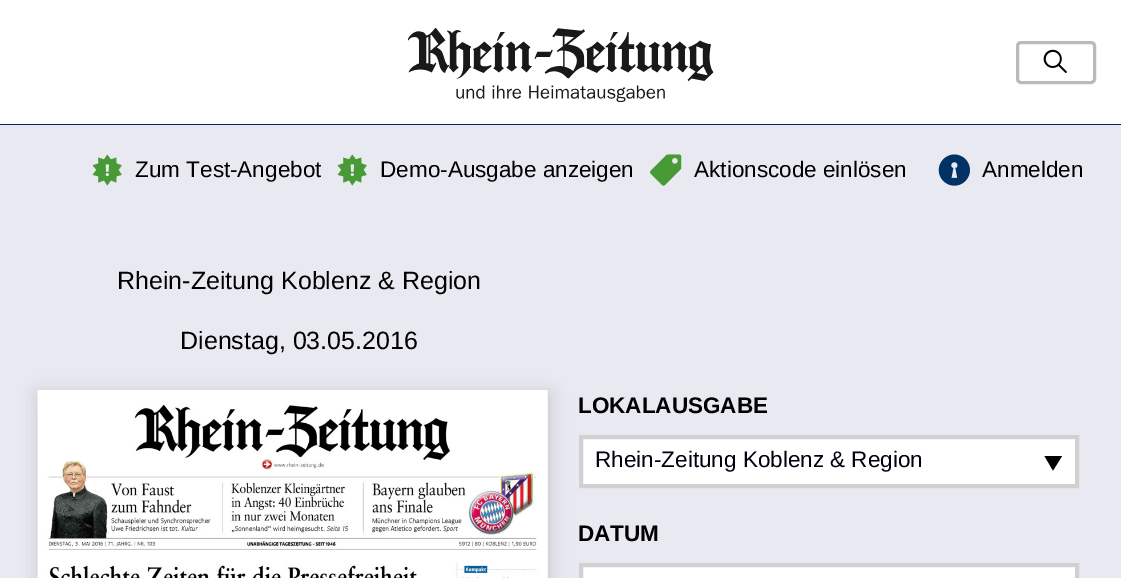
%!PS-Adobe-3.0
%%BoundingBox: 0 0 1121 578
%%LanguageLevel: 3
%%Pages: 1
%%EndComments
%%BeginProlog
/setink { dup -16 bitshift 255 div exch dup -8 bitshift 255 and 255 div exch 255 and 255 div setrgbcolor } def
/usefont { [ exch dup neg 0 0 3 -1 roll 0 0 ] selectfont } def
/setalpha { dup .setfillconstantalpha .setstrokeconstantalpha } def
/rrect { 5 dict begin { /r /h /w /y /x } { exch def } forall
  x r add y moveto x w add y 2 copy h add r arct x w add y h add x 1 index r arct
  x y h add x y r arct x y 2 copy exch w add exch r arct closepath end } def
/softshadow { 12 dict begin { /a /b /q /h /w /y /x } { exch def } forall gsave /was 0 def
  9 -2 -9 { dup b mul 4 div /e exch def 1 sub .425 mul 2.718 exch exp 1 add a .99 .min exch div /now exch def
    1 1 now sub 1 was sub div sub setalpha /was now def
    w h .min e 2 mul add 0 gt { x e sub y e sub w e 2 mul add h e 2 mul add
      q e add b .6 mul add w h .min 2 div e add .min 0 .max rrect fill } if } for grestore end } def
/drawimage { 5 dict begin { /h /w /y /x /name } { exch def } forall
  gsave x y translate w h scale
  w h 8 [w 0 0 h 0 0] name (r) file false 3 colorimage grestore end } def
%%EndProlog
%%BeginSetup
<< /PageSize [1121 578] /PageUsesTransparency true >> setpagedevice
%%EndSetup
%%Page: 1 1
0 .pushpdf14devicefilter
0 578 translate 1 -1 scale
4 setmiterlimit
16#E9E9F1 setink
0 0 1121 578 rectfill
16#FFFFFF setink
0 0 1121 124 rectfill
16#002B55 setink
0 124 1121 1 rectfill
(img1.raw) 408 28 306 74 drawimage
16#BABABA setink
3 setlinewidth
1017.5 42.5 77 40 3.5 rrect stroke
(img2.raw) 1043 49 24 24 drawimage
(img3.raw) 92 154 30 32 drawimage
/LiberationSans-Regular 22.5 usefont
16#000000 setink
135 177 moveto (Zum Test-Angebot) show
(img3.raw) 337 154 30 32 drawimage
380 177 moveto (Demo-Ausgabe anzeigen) show
(img4.raw) 650 154 32 32 drawimage
694 177 moveto (Aktionscode einlösen) show
(img5.raw) 938 154 32 32 drawimage
982 177 moveto (Anmelden) show
/LiberationSans-Regular 25 usefont
117 289 moveto (Rhein-Zeitung Koblenz & Region) show
180 349 moveto (Dienstag, 03.05.2016) show
38 394 511 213 0 9.5 0.15 softshadow
(img6.raw) 37 390 511 188 drawimage
/LiberationSans-Bold 22.5 usefont
578 413 moveto (LOKALAUSGABE) show
16#FFFFFF setink
581 437 moveto 1077 437 lineto 1077 486 lineto 581 486 lineto closepath gsave fill grestore
16#D1D1D1 setink
4 setlinewidth
stroke
/LiberationSans-Regular 22.5 usefont
16#00000F setink
595 467 moveto (Rhein-Zeitung Koblenz & Region) show
16#000000 setink
1044.5 456 moveto 1062 456 lineto 1053 470.5 lineto closepath fill
/LiberationSans-Bold 22.5 usefont
578 541 moveto (DATUM) show
16#FFFFFF setink
581 565 moveto 1077 565 lineto 1077 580 lineto 581 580 lineto closepath gsave fill grestore
16#D1D1D1 setink
stroke
.poppdf14devicefilter showpage
%%EOF
